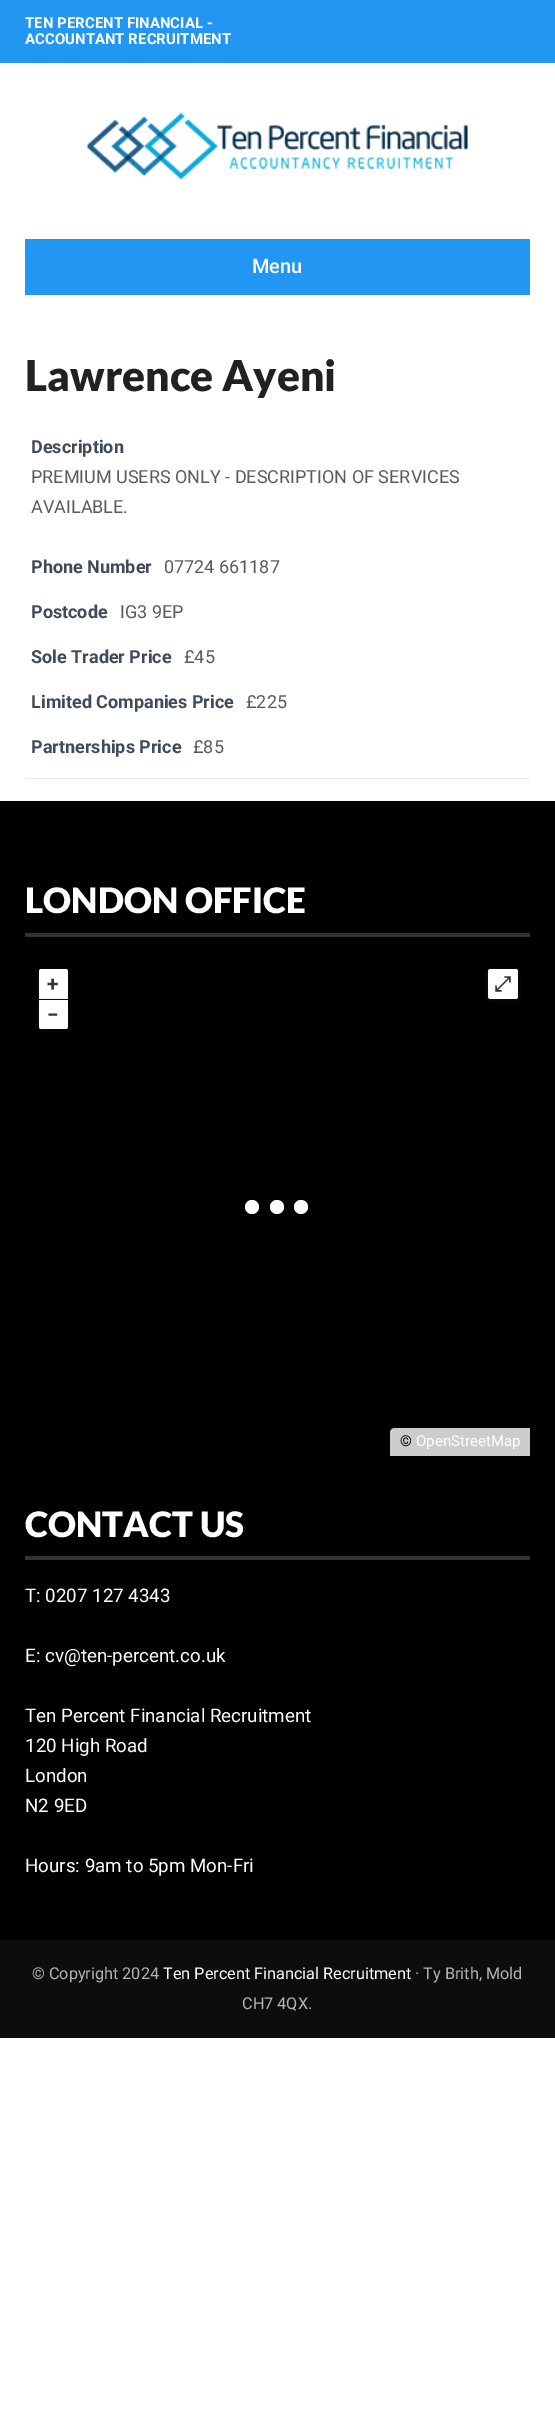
%!PS-Adobe-3.0
%%BoundingBox: 0 0 555 2414
%%LanguageLevel: 3
%%Pages: 1
%%EndComments
%%BeginProlog
/setink { dup -16 bitshift 255 div exch dup -8 bitshift 255 and 255 div exch 255 and 255 div setrgbcolor } def
/usefont { [ exch dup neg 0 0 3 -1 roll 0 0 ] selectfont } def
/setalpha { dup .setfillconstantalpha .setstrokeconstantalpha } def
/disc { newpath 0 360 arc closepath } def
/rrect { 5 dict begin { /r /h /w /y /x } { exch def } forall
  x r add y moveto x w add y 2 copy h add r arct x w add y h add x 1 index r arct
  x y h add x y r arct x y 2 copy exch w add exch r arct closepath end } def
/softshadow { 12 dict begin { /a /b /q /h /w /y /x } { exch def } forall gsave /was 0 def
  9 -2 -9 { dup b mul 4 div /e exch def 1 sub .425 mul 2.718 exch exp 1 add a .99 .min exch div /now exch def
    1 1 now sub 1 was sub div sub setalpha /was now def
    w h .min e 2 mul add 0 gt { x e sub y e sub w e 2 mul add h e 2 mul add
      q e add b .6 mul add w h .min 2 div e add .min 0 .max rrect fill } if } for grestore end } def
/drawimage { 5 dict begin { /h /w /y /x /name } { exch def } forall
  gsave x y translate w h scale
  w h 8 [w 0 0 h 0 0] name (r) file false 3 colorimage grestore end } def
%%EndProlog
%%BeginSetup
<< /PageSize [555 2414] /PageUsesTransparency true >> setpagedevice
%%EndSetup
%%Page: 1 1
0 .pushpdf14devicefilter
0 2414 translate 1 -1 scale
4 setmiterlimit
16#FFFFFF setink
0 0 555 2414 rectfill
16#2196F3 setink
0 0 555 63 rectfill
/Roboto-Bold 15 usefont
16#FFFFFF setink
25 28 moveto (TEN PERCENT FINANCIAL -) show
25 44 moveto (ACCOUNTANT RECRUITMENT) show
(img1.raw) 87 112 381 69 drawimage
16#2196F3 setink
25 239 505 56 rectfill
/Roboto-Medium 20 usefont
16#FFFFFF setink
252 273 moveto (Menu) show
16#EBEBEB setink
25 778 505 1 rectfill
/Lato-Black 42.5 usefont
16#212121 setink
25 391 moveto (Lawrence Ayeni) show
/Roboto-Bold 18 usefont
16#3F4B5B setink
31 453 moveto (Description) show
/Roboto-Regular 18 usefont
16#5A5B5C setink
31 483 moveto (PREMIUM USERS ONLY - DESCRIPTION OF SERVICES) show
31 513 moveto (AVAILABLE.) show
/Roboto-Bold 18 usefont
16#3F4B5B setink
31 573 moveto (Phone Number) show
/Roboto-Regular 18 usefont
16#5A5B5C setink
164 573 moveto (07724 661187) show
/Roboto-Bold 18 usefont
16#3F4B5B setink
31 618 moveto (Postcode) show
/Roboto-Regular 18 usefont
16#5A5B5C setink
120 618 moveto (IG3 9EP) show
/Roboto-Bold 18 usefont
16#3F4B5B setink
31 663 moveto (Sole Trader Price) show
/Roboto-Regular 18 usefont
16#5A5B5C setink
184 663 moveto (£45) show
/Roboto-Bold 18 usefont
16#3F4B5B setink
31 708 moveto (Limited Companies Price) show
/Roboto-Regular 18 usefont
16#5A5B5C setink
246 708 moveto (£225) show
/Roboto-Bold 18 usefont
16#3F4B5B setink
31 753 moveto (Partnerships Price) show
/Roboto-Regular 18 usefont
16#5A5B5C setink
193 753 moveto (£85) show
16#000000 setink
0 801 555 1139 rectfill
16#333333 setink
25 933 505 4 rectfill
/Lato-Black 35 usefont
16#FFFFFF setink
25 913 moveto (LONDON OFFICE) show
16#424242 setink
38 969 31 32 4 2 0.16 softshadow
16#FFFFFF setink
41.5 969 moveto 65.5 969 lineto 67 969 68 970 68 971.5 curveto 68 999 lineto 39 999 lineto 39 971.5 lineto 39 970 40 969 41.5 969 curveto closepath fill
/Roboto-Bold 21 usefont
16#333333 setink
47 991 moveto (+) show
16#424242 setink
38 1000 31 31 4 2 0.16 softshadow
16#FFFFFF setink
39 1000 moveto 68 1000 lineto 68 1026.5 lineto 68 1028 67 1029 65.5 1029 curveto 41.5 1029 lineto 40 1029 39 1028 39 1026.5 curveto closepath fill
16#333333 setink
47 1022 moveto (−) show
16#424242 setink
486 969 33 32 4 2 0.16 softshadow
16#FFFFFF setink
488 969 30 30 2.5 rrect fill
/FreeSerif-Bold 21 usefont
16#333333 setink
494 991 moveto (⤢) show
16#CCCCCC setink
395 1428 moveto 530 1428 lineto 530 1456 lineto 390 1456 lineto 390 1433 lineto 390 1430 392 1428 395 1428 curveto closepath fill
/Roboto-Regular 15 usefont
16#000000 setink
400 1446 moveto (©) show
16#FFFFFF setink
416 1446 moveto (OpenStreetMap) show
252 1207 7 disc fill
277 1207 7 disc fill
301 1207 7 disc fill
16#333333 setink
25 1556 505 4 rectfill
/Lato-Black 35 usefont
16#FFFFFF setink
25 1537 moveto (CONTACT US) show
/Roboto-Regular 18.75 usefont
[
    [(T: 0207 127 4343) 25 1602]
    [(E: cv@ten-percent.co.uk) 25 1662]
    [(Ten Percent Financial Recruitment) 25 1722]
    [(120 High Road) 25 1752]
    [(London) 25 1782]
    [(N2 9ED) 25 1812]
    [(Hours: 9am to 5pm Mon-Fri) 25 1872]
] { aload pop moveto show } forall
16#0D0D0D setink
0 1940 555 98 rectfill
/Roboto-Regular 16.25 usefont
16#B3B3B3 setink
32 1979 moveto (© Copyright 2024) show
16#FFFFFF setink
163 1979 moveto (Ten Percent Financial Recruitment) show
16#B3B3B3 setink
415 1979 moveto (· Ty Brith, Mold) show
242 2009 moveto (CH7 4QX.) show
.poppdf14devicefilter showpage
%%EOF
